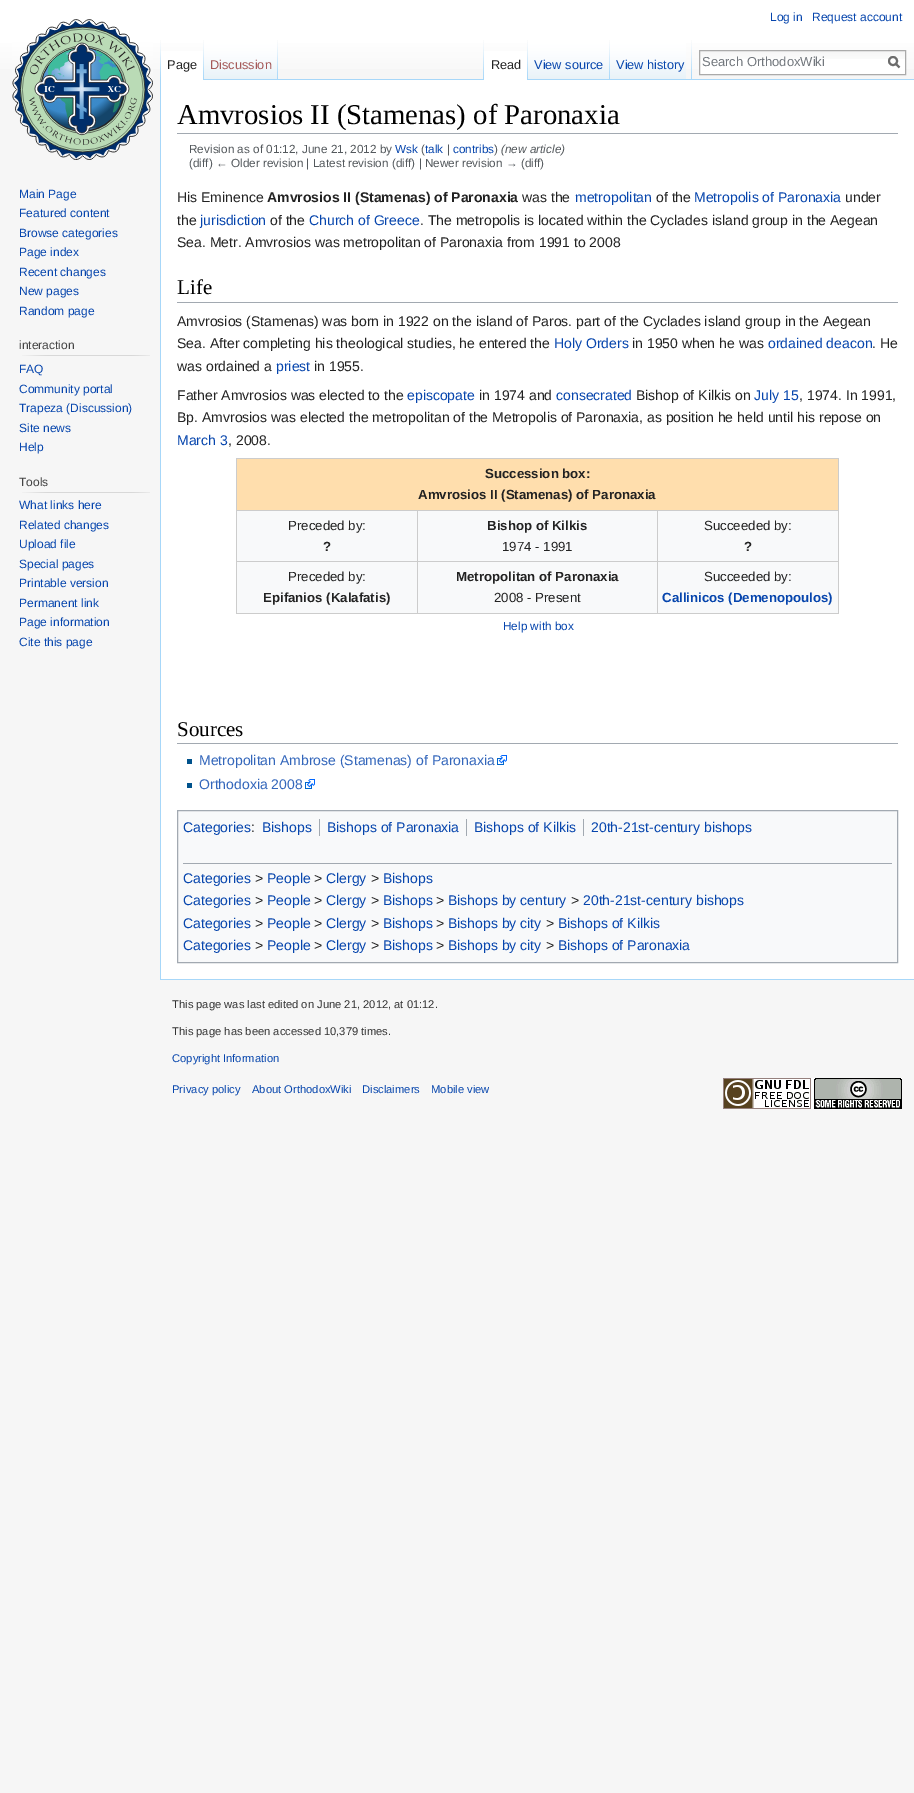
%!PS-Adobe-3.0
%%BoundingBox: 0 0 914 1793
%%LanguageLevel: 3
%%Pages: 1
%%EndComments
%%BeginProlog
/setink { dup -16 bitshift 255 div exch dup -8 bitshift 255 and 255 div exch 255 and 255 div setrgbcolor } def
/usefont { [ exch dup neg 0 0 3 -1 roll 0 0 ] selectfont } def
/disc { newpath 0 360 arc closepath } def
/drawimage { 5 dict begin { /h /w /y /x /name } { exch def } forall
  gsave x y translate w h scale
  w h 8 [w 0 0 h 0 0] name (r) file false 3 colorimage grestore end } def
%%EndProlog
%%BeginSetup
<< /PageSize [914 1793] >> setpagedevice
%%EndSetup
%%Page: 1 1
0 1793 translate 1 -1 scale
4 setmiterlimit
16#F6F6F6 setink
0 0 914 1793 rectfill
gsave 0 0 moveto 914 0 lineto 914 69 lineto 0 69 lineto closepath clip newpath
<< /ShadingType 2 /ColorSpace /DeviceRGB /Coords [457 0 457 80] /Extend [true true] /Function << /FunctionType 3 /Domain [0 1] /Functions [<< /FunctionType 2 /Domain [0 1] /C0 [1 1 1] /C1 [1 1 1] /N 1 >> << /FunctionType 2 /Domain [0 1] /C0 [1 1 1] /C1 [0.965 0.965 0.965] /N 1 >>] /Bounds [0.5] /Encode [0 1 0 1] >> >> shfill grestore
/LiberationSans-Regular 12 usefont
16#0645AD setink
770 21 moveto (Log in) show
812 21 moveto (Request account) show
(img1.raw) 160 40 1 39 drawimage
16#FFFFFF setink
161 51 42 29 rectfill
(img2.raw) 203 40 1 40 drawimage
/LiberationSans-Regular 12.75 usefont
16#222222 setink
167 69 moveto (Page) show
(img3.raw) 204 40 74 40 drawimage
(img1.raw) 277 40 1 39 drawimage
16#A55858 setink
210 69 moveto (Discussion) show
(img1.raw) 483 40 1 39 drawimage
16#A7D7F9 setink
278 79 636 1 rectfill
16#FFFFFF setink
484 51 43 29 rectfill
(img2.raw) 527 40 1 40 drawimage
16#222222 setink
491 69 moveto (Read) show
(img4.raw) 528 40 82 40 drawimage
(img1.raw) 609 40 1 39 drawimage
16#0645AD setink
534 69 moveto (View source) show
(img5.raw) 610 40 76 40 drawimage
616 69 moveto (View history) show
(img1.raw) 691 40 1 39 drawimage
16#FFFFFF setink
700 59 205 15 rectfill
(img6.raw) 700 51 205 8 drawimage
16#AAAAAA setink
699.5 50.5 206 24 rectstroke
/LiberationSans-Regular 13 usefont
16#72777D setink
702 66 moveto (Search OrthodoxWiki) show
16#6C6C6C setink
2 setlinewidth
899.5 67.5 moveto 895.5 63.5 lineto stroke
893 61 4 disc stroke
(img7.raw) 12 19 141 141 drawimage
/LiberationSans-Regular 12 usefont
16#0645AD setink
[
    [(Main Page) 19 198]
    [(Featured content) 19 217]
    [(Browse categories) 19 237]
    [(Page index) 19 256]
    [(Recent changes) 19 276]
    [(New pages) 19 295]
    [(Random page) 19 315]
] { aload pop moveto show } forall
16#444444 setink
19 349 moveto (interaction) show
(img8.raw) 22 355 128 1 drawimage
16#0645AD setink
[
    [(FAQ) 19 373]
    [(Community portal) 19 393]
    [(Trapeza \(Discussion\)) 19 412]
    [(Site news) 19 432]
    [(Help) 19 451]
] { aload pop moveto show } forall
16#444444 setink
19 486 moveto (Tools) show
(img8.raw) 22 492 128 1 drawimage
16#0645AD setink
[
    [(What links here) 19 509]
    [(Related changes) 19 529]
    [(Upload file) 19 548]
    [(Special pages) 19 568]
    [(Printable version) 19 587]
    [(Permanent link) 19 607]
    [(Page information) 19 626]
    [(Cite this page) 19 646]
] { aload pop moveto show } forall
[
    [161 80 753 899 16#FFFFFF]
    [160 979 754 1 16#A7D7F9]
    [160 79 1 901 16#A7D7F9]
    [177 133 721 1 16#A2A9B1]
] { aload pop setink rectfill } forall
/LiberationSerif-Regular 28.75 usefont
16#000000 setink
177 124 moveto (Amvrosios II \(Stamenas\) of Paronaxia) show
/LiberationSans-Regular 11.75 usefont
16#54595D setink
189 153 moveto (Revision as of 01:12, June 21, 2012 by) show
16#0645AD setink
395 153 moveto (Wsk) show
16#54595D setink
421 153 moveto (\() show
16#0645AD setink
425 153 moveto (talk) show
16#54595D setink
447 153 moveto (|) show
16#0645AD setink
453 153 moveto (contribs) show
16#54595D setink
494 153 moveto (\)) show
/LiberationSans-Italic 11.75 usefont
501 153 moveto (\(new article\)) show
/LiberationSans-Regular 11.75 usefont
189 167 moveto (\(diff\) ← Older revision | Latest revision \(diff\) | Newer revision → \(diff\)) show
/LiberationSans-Regular 14 usefont
16#222222 setink
177 202 moveto (His Eminence) show
/LiberationSans-Bold 14 usefont
267 202 moveto (Amvrosios II \(Stamenas\) of Paronaxia) show
/LiberationSans-Regular 14 usefont
522 202 moveto (was the) show
16#0645AD setink
575 202 moveto (metropolitan) show
16#222222 setink
656 202 moveto (of the) show
16#0645AD setink
694 202 moveto (Metropolis of Paronaxia) show
16#222222 setink
845 202 moveto (under) show
177 225 moveto (the) show
16#0645AD setink
200 225 moveto (jurisdiction) show
16#222222 setink
270 225 moveto (of the) show
16#0645AD setink
309 225 moveto (Church of Greece) show
16#222222 setink
420 225 moveto (. The metropolis is located within the Cyclades island group in the Aegean) show
177 247 moveto (Sea. Metr. Amvrosios was metropolitan of Paronaxia from 1991 to 2008) show
16#A2A9B1 setink
177 302 721 1 rectfill
/LiberationSerif-Regular 21 usefont
16#000000 setink
177 294 moveto (Life) show
/LiberationSans-Regular 14 usefont
16#222222 setink
177 326 moveto (Amvrosios \(Stamenas\) was born in 1922 on the island of Paros. part of the Cyclades island group in the Aegean) show
177 348 moveto (Sea. After completing his theological studies, he entered the) show
16#0645AD setink
554 348 moveto (Holy Orders) show
16#222222 setink
632 348 moveto (in 1950 when he was) show
16#0645AD setink
768 348 moveto (ordained deacon) show
16#222222 setink
872 348 moveto (. He) show
177 371 moveto (was ordained a) show
16#0645AD setink
276 371 moveto (priest) show
16#222222 setink
314 371 moveto (in 1955.) show
177 400 moveto (Father Amvrosios was elected to the) show
16#0645AD setink
407 400 moveto (episcopate) show
16#222222 setink
479 400 moveto (in 1974 and) show
16#0645AD setink
556 400 moveto (consecrated) show
16#222222 setink
636 400 moveto (Bishop of Kilkis on) show
16#0645AD setink
754 400 moveto (July 15) show
16#222222 setink
799 400 moveto (, 1974. In 1991,) show
177 422 moveto (Bp. Amvrosios was elected the metropolitan of the Metropolis of Paronaxia, as position he held until his repose on) show
16#0645AD setink
177 445 moveto (March 3) show
16#222222 setink
228 445 moveto (, 2008.) show
[
    [237 511 601 102 16#F8F9FA]
    [236 458 603 1 16#CCCCCC]
    [838 458 1 156 16#CCCCCC]
    [236 613 603 1 16#CCCCCC]
    [236 458 1 156 16#CCCCCC]
    [237 459 601 51 16#FFDEAD]
] { aload pop setink rectfill } forall
/LiberationSans-Bold 13.25 usefont
16#222222 setink
485 478 moveto (Succession box:) show
418 499 moveto (Amvrosios II \(Stamenas\) of Paronaxia) show
[
    [657 510 182 1 16#CCCCCC]
    [657 561 182 1 16#CCCCCC]
    [657 561 1 53 16#CCCCCC]
    [417 561 241 1 16#CCCCCC]
    [657 510 1 52 16#CCCCCC]
    [417 510 241 1 16#CCCCCC]
    [417 561 1 53 16#CCCCCC]
    [236 561 182 1 16#CCCCCC]
    [417 510 1 52 16#CCCCCC]
    [236 510 182 1 16#CCCCCC]
] { aload pop setink rectfill } forall
/LiberationSans-Regular 13.25 usefont
16#222222 setink
288 530 moveto (Preceded by:) show
/LiberationSans-Bold 13.25 usefont
323 551 moveto (?) show
487 530 moveto (Bishop of Kilkis) show
/LiberationSans-Regular 13.25 usefont
502 551 moveto (1974 - 1991) show
704 530 moveto (Succeeded by:) show
/LiberationSans-Bold 13.25 usefont
744 551 moveto (?) show
/LiberationSans-Regular 13.25 usefont
288 581 moveto (Preceded by:) show
/LiberationSans-Bold 13.25 usefont
263 602 moveto (Epifanios \(Kalafatis\)) show
456 581 moveto (Metropolitan of Paronaxia) show
/LiberationSans-Regular 13.25 usefont
494 602 moveto (2008 - Present) show
704 581 moveto (Succeeded by:) show
/LiberationSans-Bold 13.25 usefont
16#0645AD setink
662 602 moveto (Callinicos \(Demenopoulos\)) show
/LiberationSans-Regular 11.75 usefont
503 630 moveto (Help with box) show
16#A2A9B1 setink
177 743 721 1 rectfill
/LiberationSerif-Regular 21 usefont
16#000000 setink
177 736 moveto (Sources) show
16#00528C setink
187 759 5 5 rectfill
/LiberationSans-Regular 14 usefont
16#3366BB setink
199 765 moveto (Metropolitan Ambrose \(Stamenas\) of Paronaxia) show
(img9.raw) 497 755 10 10 drawimage
16#00528C setink
187 783 5 5 rectfill
16#3366BB setink
199 789 moveto (Orthodoxia 2008) show
(img9.raw) 305 779 10 10 drawimage
16#F8F9FA setink
177.5 810.5 moveto 897.5 810.5 lineto 897.5 962.5 lineto 177.5 962.5 lineto closepath gsave fill grestore
16#A2A9B1 setink
1 setlinewidth
stroke
16#0645AD setink
183 832 moveto (Categories) show
16#222222 setink
251 832 moveto (:) show
16#0645AD setink
262 832 moveto (Bishops) show
16#A2A9B1 setink
319 819 1 17 rectfill
16#0645AD setink
327 832 moveto (Bishops of Paronaxia) show
16#A2A9B1 setink
466 819 1 17 rectfill
16#0645AD setink
474 832 moveto (Bishops of Kilkis) show
16#A2A9B1 setink
583 819 1 17 rectfill
16#0645AD setink
591 832 moveto (20th-21st-century bishops) show
16#A2A9B1 setink
183 863 709 1 rectfill
16#0645AD setink
183 883 moveto (Categories) show
16#222222 setink
255 883 moveto (>) show
16#0645AD setink
267 883 moveto (People) show
16#222222 setink
314 883 moveto (>) show
16#0645AD setink
326 883 moveto (Clergy) show
16#222222 setink
371 883 moveto (>) show
16#0645AD setink
383 883 moveto (Bishops) show
183 905 moveto (Categories) show
16#222222 setink
255 905 moveto (>) show
16#0645AD setink
267 905 moveto (People) show
16#222222 setink
314 905 moveto (>) show
16#0645AD setink
326 905 moveto (Clergy) show
16#222222 setink
371 905 moveto (>) show
16#0645AD setink
383 905 moveto (Bishops) show
16#222222 setink
436 905 moveto (>) show
16#0645AD setink
448 905 moveto (Bishops by century) show
16#222222 setink
571 905 moveto (>) show
16#0645AD setink
583 905 moveto (20th-21st-century bishops) show
183 928 moveto (Categories) show
16#222222 setink
255 928 moveto (>) show
16#0645AD setink
267 928 moveto (People) show
16#222222 setink
314 928 moveto (>) show
16#0645AD setink
326 928 moveto (Clergy) show
16#222222 setink
371 928 moveto (>) show
16#0645AD setink
383 928 moveto (Bishops) show
16#222222 setink
436 928 moveto (>) show
16#0645AD setink
448 928 moveto (Bishops by city) show
16#222222 setink
546 928 moveto (>) show
16#0645AD setink
558 928 moveto (Bishops of Kilkis) show
183 950 moveto (Categories) show
16#222222 setink
255 950 moveto (>) show
16#0645AD setink
267 950 moveto (People) show
16#222222 setink
314 950 moveto (>) show
16#0645AD setink
326 950 moveto (Clergy) show
16#222222 setink
371 950 moveto (>) show
16#0645AD setink
383 950 moveto (Bishops) show
16#222222 setink
436 950 moveto (>) show
16#0645AD setink
448 950 moveto (Bishops by city) show
16#222222 setink
546 950 moveto (>) show
16#0645AD setink
558 950 moveto (Bishops of Paronaxia) show
/LiberationSans-Regular 11.2 usefont
16#333333 setink
172 1008 moveto (This page was last edited on June 21, 2012, at 01:12.) show
172 1035 moveto (This page has been accessed 10,379 times.) show
16#0645AD setink
[
    [(Copyright Information) 172 1062]
    [(Privacy policy) 172 1093]
    [(About OrthodoxWiki) 252 1093]
    [(Disclaimers) 362 1093]
    [(Mobile view) 431 1093]
] { aload pop moveto show } forall
(img10.raw) 723 1078 179 31 drawimage
showpage
%%EOF
